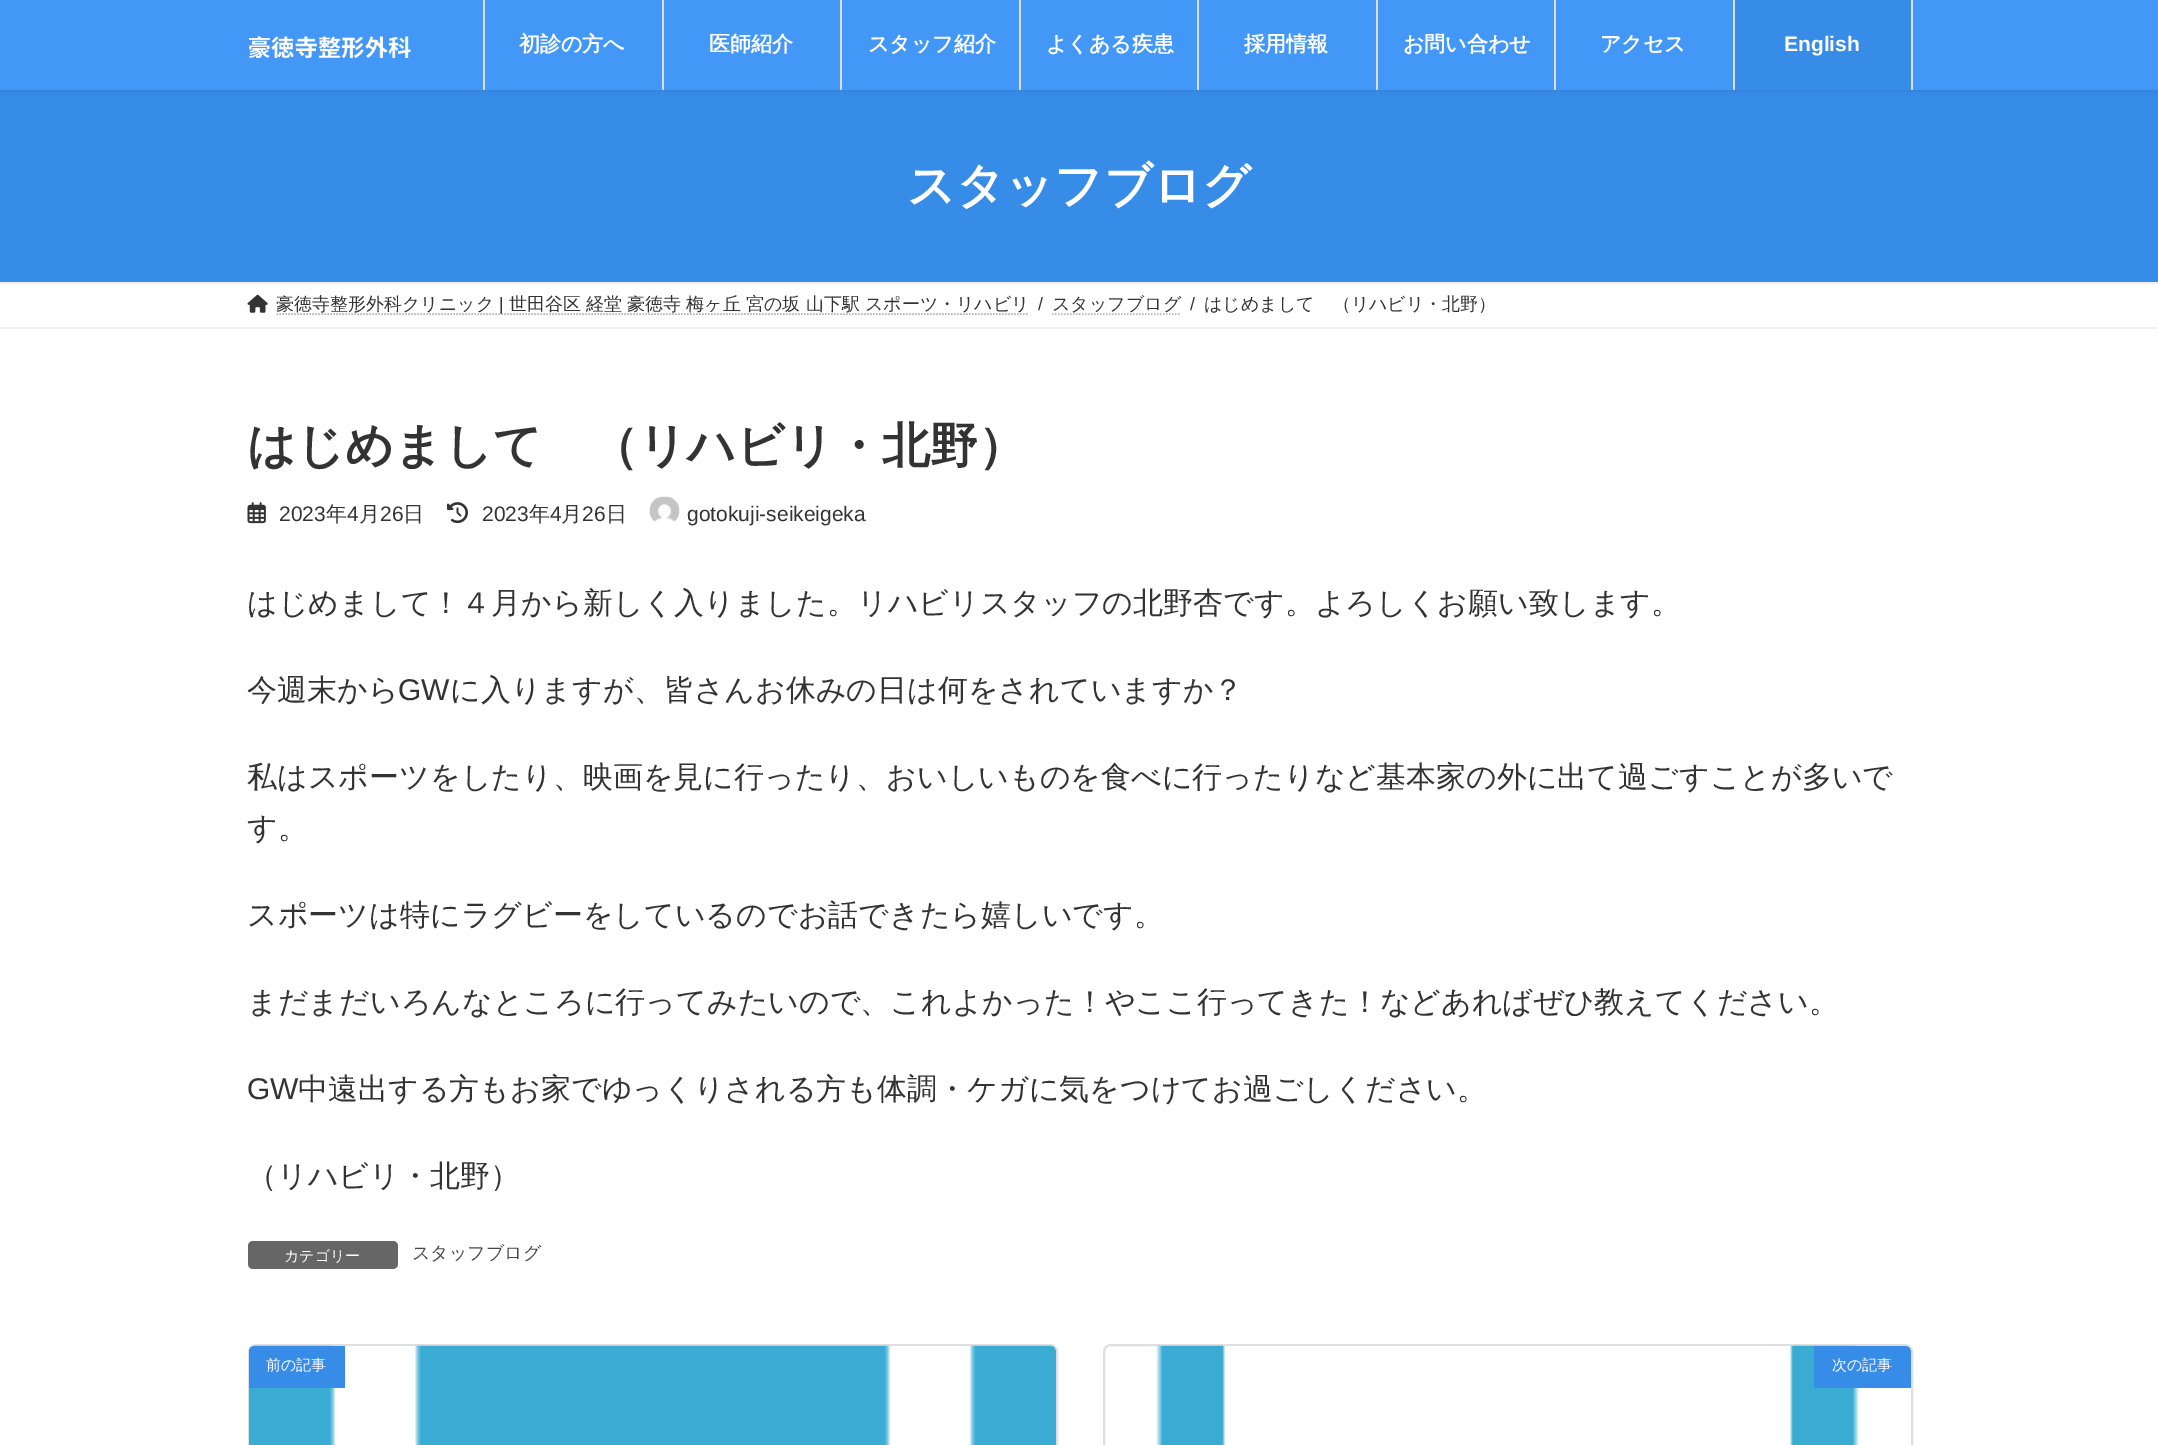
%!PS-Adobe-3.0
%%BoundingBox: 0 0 2158 1445
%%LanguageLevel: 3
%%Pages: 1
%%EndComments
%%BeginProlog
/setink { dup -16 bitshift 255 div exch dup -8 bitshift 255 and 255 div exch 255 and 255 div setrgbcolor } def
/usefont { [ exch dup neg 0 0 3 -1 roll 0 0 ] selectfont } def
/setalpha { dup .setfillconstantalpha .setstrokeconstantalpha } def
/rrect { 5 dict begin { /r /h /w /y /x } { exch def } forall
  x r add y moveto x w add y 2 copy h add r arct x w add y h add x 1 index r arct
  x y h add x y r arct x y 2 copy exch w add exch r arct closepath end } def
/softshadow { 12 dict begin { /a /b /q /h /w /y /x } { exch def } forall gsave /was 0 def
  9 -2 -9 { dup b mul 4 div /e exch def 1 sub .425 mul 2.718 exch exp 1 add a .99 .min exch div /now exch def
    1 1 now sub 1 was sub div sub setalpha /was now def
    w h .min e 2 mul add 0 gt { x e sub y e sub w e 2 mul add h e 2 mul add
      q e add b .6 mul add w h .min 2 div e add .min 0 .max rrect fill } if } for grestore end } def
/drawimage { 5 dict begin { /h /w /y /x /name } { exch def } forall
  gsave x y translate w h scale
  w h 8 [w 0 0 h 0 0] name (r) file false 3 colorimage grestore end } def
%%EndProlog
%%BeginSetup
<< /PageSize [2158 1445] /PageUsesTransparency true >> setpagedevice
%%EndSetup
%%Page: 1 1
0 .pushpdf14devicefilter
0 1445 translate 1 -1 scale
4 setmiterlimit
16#FFFFFF setink
0 0 2158 1445 rectfill
16#378CE8 setink
0 90 2158 192 rectfill
16#000000 setink
0 2 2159 90 0 2 0.05 softshadow
16#4397F7 setink
0 0 2158 90 rectfill
(img1.raw) 249 36 162 23 drawimage
16#DDDDDD setink
662 0 2 90 rectfill
483 0 2 90 rectfill
/WenQuanYiZenHei-Bold 21 usefont
16#FFFFFF setink
519 51 moveto (初診の方へ) show
16#DDDDDD setink
840 0 2 90 rectfill
16#FFFFFF setink
709 51 moveto (医師紹介) show
16#DDDDDD setink
1019 0 2 90 rectfill
16#FFFFFF setink
868 51 moveto (スタッフ紹介) show
16#DDDDDD setink
1197 0 2 90 rectfill
16#FFFFFF setink
1046 51 moveto (よくある疾患) show
16#DDDDDD setink
1376 0 2 90 rectfill
16#FFFFFF setink
1244 51 moveto (採用情報) show
16#DDDDDD setink
1554 0 2 90 rectfill
16#FFFFFF setink
1403 51 moveto (お問い合わせ) show
1600 51 moveto (アクセス) show
[
    [1735 0 176 90 16#378CE8]
    [1911 0 2 90 16#DDDDDD]
    [1733 0 2 90 16#DDDDDD]
] { aload pop setink rectfill } forall
/LiberationSans-Bold 21 usefont
16#FFFFFF setink
1784 51 moveto (English) show
/WenQuanYiZenHei-Bold 48 usefont
907 202 moveto (スタッフブログ) show
16#F0F0F0 setink
0 282 2158 2 rectfill
0 327 2158 2 rectfill
(img2.raw) 247 294 21 19 drawimage
/WenQuanYiZenHei-Medium 18 usefont
16#333333 setink
276 310 moveto (豪徳寺整形外科クリニック) show
16#B3B3B3 setink
1.5 setlinewidth
[1.5 1.5] 0 setdash
276.5 314 moveto 1029 314 lineto stroke
/LiberationSans-Regular 18 usefont
16#333333 setink
499 310 moveto (|) show
/WenQuanYiZenHei-Medium 18 usefont
509 310 moveto -0.25 0 32 (世田谷区 経堂 豪徳寺 梅ヶ丘 宮の坂 山下駅 スポーツ・リハビリ) widthshow
/LiberationSans-Regular 18 usefont
1038 310 moveto (/) show
/WenQuanYiZenHei-Medium 18 usefont
1052 310 moveto (スタッフブログ) show
16#B3B3B3 setink
1052 314 moveto 1181 314 lineto stroke
/LiberationSans-Regular 18 usefont
16#333333 setink
1190 310 moveto (/) show
/WenQuanYiZenHei-Medium 18 usefont
1204 310 moveto (はじめまして　（リハビリ・北野）) show
/WenQuanYiZenHei-Bold 48 usefont
247 462 moveto (はじめまして　（リハビリ・北野）) show
(img3.raw) 247 502 19 22 drawimage
/LiberationSans-Regular 21 usefont
279 521 moveto (2023) show
/WenQuanYiZenHei-Medium 21 usefont
326 521 moveto (年) show
/LiberationSans-Regular 21 usefont
347 521 moveto (4) show
/WenQuanYiZenHei-Medium 21 usefont
359 521 moveto (月) show
/LiberationSans-Regular 21 usefont
380 521 moveto (26) show
/WenQuanYiZenHei-Medium 21 usefont
403 521 moveto (日) show
(img4.raw) 447 502 21 22 drawimage
/LiberationSans-Regular 21 usefont
482 521 moveto (2023) show
/WenQuanYiZenHei-Medium 21 usefont
529 521 moveto (年) show
/LiberationSans-Regular 21 usefont
550 521 moveto (4) show
/WenQuanYiZenHei-Medium 21 usefont
561 521 moveto (月) show
/LiberationSans-Regular 21 usefont
582 521 moveto (26) show
/WenQuanYiZenHei-Medium 21 usefont
606 521 moveto (日) show
(img5.raw) 649 496 31 26 drawimage
/LiberationSans-Regular 21 usefont
687 521 moveto (gotokuji-seikeigeka) show
/WenQuanYiZenHei-Medium 30 usefont
247 613 moveto (はじめまして！４月から新しく入りました。リハビリスタッフの北野杏です。よろしくお願い致します。) show
247 700 moveto (今週末から) show
/LiberationSans-Regular 30 usefont
398 700 moveto (GW) show
/WenQuanYiZenHei-Medium 30 usefont
[
    [(に入りますが、皆さんお休みの日は何をされていますか？) 450 700]
    [(私はスポーツをしたり、映画を見に行ったり、おいしいものを食べに行ったりなど基本家の外に出て過ごすことが多いで) 247 787]
    [(す。) 247 838]
    [(スポーツは特にラグビーをしているのでお話できたら嬉しいです。) 247 925]
    [(まだまだいろんなところに行ってみたいので、これよかった！やここ行ってきた！などあればぜひ教えてください。) 247 1012]
] { aload pop moveto show } forall
/LiberationSans-Regular 30 usefont
247 1099 moveto (GW) show
/WenQuanYiZenHei-Medium 30 usefont
298 1099 moveto (中遠出する方もお家でゆっくりされる方も体調・ケガに気をつけてお過ごしください。) show
247 1186 moveto (（リハビリ・北野）) show
16#666666 setink
248 1241 150 28 5 rrect fill
/WenQuanYiZenHei-Medium 15 usefont
16#FFFFFF setink
284 1261 moveto (カテゴリー) show
/WenQuanYiZenHei-Medium 18 usefont
16#464646 setink
412 1259 moveto (スタッフブログ) show
16#DFDFDF setink
2 setlinewidth
[] 0 setdash
249 1345 808 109 7 rrect stroke
(img6.raw) 249 1345 807 100 drawimage
16#378CE8 setink
255 1346 moveto 345 1346 lineto 345 1388 lineto 249 1388 lineto 249 1352 lineto 249 1348.5 251.5 1346 255 1346 curveto closepath fill
/WenQuanYiZenHei-Medium 15 usefont
16#FFFFFF setink
266 1370 moveto (前の記事) show
16#DFDFDF setink
1104 1345 808 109 7 rrect stroke
(img7.raw) 1156 1345 703 100 drawimage
16#378CE8 setink
1814 1346 moveto 1905 1346 lineto 1908.5 1346 1911 1348.5 1911 1352 curveto 1911 1388 lineto 1814 1388 lineto closepath fill
16#FFFFFF setink
1832 1370 moveto (次の記事) show
.poppdf14devicefilter showpage
%%EOF
